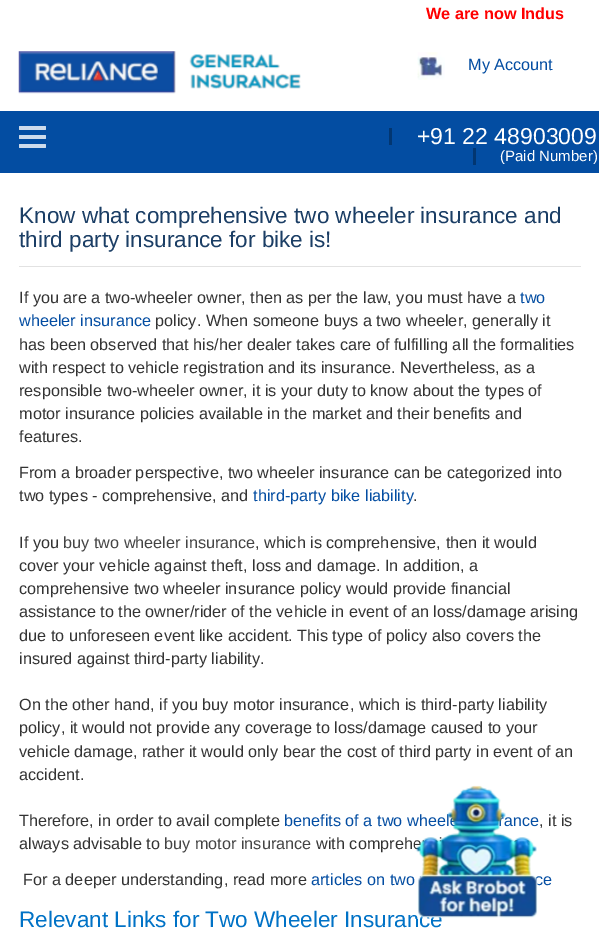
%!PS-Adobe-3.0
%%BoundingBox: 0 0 599 943
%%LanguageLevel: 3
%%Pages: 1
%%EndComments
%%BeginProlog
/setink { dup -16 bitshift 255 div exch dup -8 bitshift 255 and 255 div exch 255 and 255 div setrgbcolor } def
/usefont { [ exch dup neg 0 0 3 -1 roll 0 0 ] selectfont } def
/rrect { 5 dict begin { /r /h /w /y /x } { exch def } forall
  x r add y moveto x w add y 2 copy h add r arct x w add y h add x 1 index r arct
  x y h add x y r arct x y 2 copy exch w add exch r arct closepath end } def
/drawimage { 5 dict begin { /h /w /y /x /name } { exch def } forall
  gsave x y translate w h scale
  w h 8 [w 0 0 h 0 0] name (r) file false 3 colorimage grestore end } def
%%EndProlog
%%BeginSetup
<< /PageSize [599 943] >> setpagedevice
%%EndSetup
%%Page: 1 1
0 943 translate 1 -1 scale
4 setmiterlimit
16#FFFFFF setink
0 0 599 943 rectfill
/LiberationSans-Bold 16.25 usefont
16#FF0000 setink
426 19 moveto (We are now Indus) show
(img1.raw) 18 51 283 43 drawimage
(img2.raw) 417 52 28 28 drawimage
/LiberationSans-Regular 16.25 usefont
16#034DA2 setink
468 70 moveto (My Account) show
0 111 599 62 rectfill
16#CDDBEC setink
19 126 27 4 1 rrect fill
19 135 27 4 1 rrect fill
19 144 27 4 1 rrect fill
16#023671 setink
389 128 3 17 rectfill
/LiberationSans-Regular 23 usefont
16#FFFFFF setink
417 144 moveto (+91 22 48903009) show
/LiberationSans-Regular 15 usefont
500 161 moveto (\(Paid Number\)) show
16#023671 setink
473 148 3 17 rectfill
16#E2E2E2 setink
19 266 562 1 rectfill
/LiberationSans-Regular 22.5 usefont
16#1B3E65 setink
19 223 moveto (Know what comprehensive two wheeler insurance and) show
19 247 moveto (third party insurance for bike is!) show
/LiberationSans-Regular 16.25 usefont
16#333333 setink
19 303 moveto (If you are a two-wheeler owner, then as per the law, you must have a) show
16#034DA2 setink
520 303 moveto (two) show
19 326 moveto (wheeler insurance) show
16#333333 setink
[
    [(policy. When someone buys a two wheeler, generally it) 155 326]
    [(has been observed that his/her dealer takes care of fulfilling all the formalities) 19 350]
    [(with respect to vehicle registration and its insurance. Nevertheless, as a) 19 373]
    [(responsible two-wheeler owner, it is your duty to know about the types of) 19 396]
    [(motor insurance policies available in the market and their benefits and) 19 419]
    [(features.) 19 442]
    [(From a broader perspective, two wheeler insurance can be categorized into) 19 478]
    [(two types - comprehensive, and) 19 501]
] { aload pop moveto show } forall
16#034DA2 setink
253 501 moveto (third-party bike liability) show
16#333333 setink
413 501 moveto (.) show
19 548 moveto (If you) show
16#444444 setink
63 548 moveto (buy two wheeler insurance) show
16#333333 setink
[
    [(, which is comprehensive, then it would) 255 548]
    [(cover your vehicle against theft, loss and damage. In addition, a) 19 571]
    [(comprehensive two wheeler insurance policy would provide financial) 19 594]
    [(assistance to the owner/rider of the vehicle in event of an loss/damage arising) 19 617]
    [(due to unforeseen event like accident. This type of policy also covers the) 19 641]
    [(insured against third-party liability.) 19 664]
    [(On the other hand, if you buy motor insurance, which is third-party liability) 19 710]
    [(policy, it would not provide any coverage to loss/damage caused to your) 19 733]
    [(vehicle damage, rather it would only bear the cost of third party in event of an) 19 757]
    [(accident.) 19 780]
    [(Therefore, in order to avail complete) 19 826]
] { aload pop moveto show } forall
16#034DA2 setink
284 826 moveto (benefits of a two wheele) show
498 826 moveto (rance) show
16#333333 setink
539 826 moveto (, it is) show
19 849 moveto (always advisable to) show
16#444444 setink
164 849 moveto (buy motor insurance) show
16#333333 setink
316 849 moveto (with comprehe) show
23 885 moveto (For a deeper understanding, read more) show
16#034DA2 setink
311 885 moveto (articles on two) show
535 885 moveto (ce) show
/LiberationSans-Regular 22.5 usefont
16#0072C6 setink
19 927 moveto (Relevant Links for Two Wheeler Insurance) show
(img3.raw) 415 785 124 134 drawimage
showpage
%%EOF
